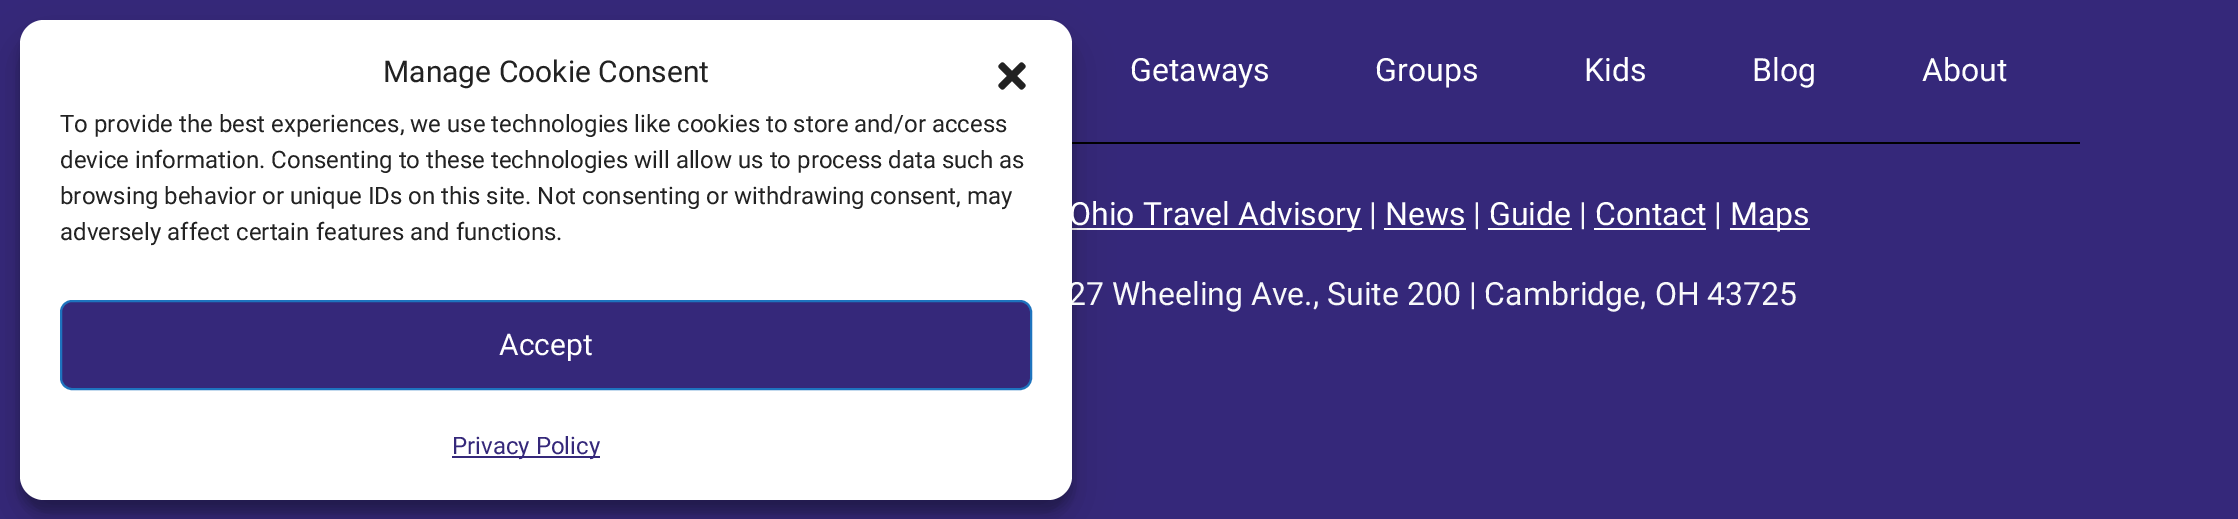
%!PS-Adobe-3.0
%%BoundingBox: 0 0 2238 519
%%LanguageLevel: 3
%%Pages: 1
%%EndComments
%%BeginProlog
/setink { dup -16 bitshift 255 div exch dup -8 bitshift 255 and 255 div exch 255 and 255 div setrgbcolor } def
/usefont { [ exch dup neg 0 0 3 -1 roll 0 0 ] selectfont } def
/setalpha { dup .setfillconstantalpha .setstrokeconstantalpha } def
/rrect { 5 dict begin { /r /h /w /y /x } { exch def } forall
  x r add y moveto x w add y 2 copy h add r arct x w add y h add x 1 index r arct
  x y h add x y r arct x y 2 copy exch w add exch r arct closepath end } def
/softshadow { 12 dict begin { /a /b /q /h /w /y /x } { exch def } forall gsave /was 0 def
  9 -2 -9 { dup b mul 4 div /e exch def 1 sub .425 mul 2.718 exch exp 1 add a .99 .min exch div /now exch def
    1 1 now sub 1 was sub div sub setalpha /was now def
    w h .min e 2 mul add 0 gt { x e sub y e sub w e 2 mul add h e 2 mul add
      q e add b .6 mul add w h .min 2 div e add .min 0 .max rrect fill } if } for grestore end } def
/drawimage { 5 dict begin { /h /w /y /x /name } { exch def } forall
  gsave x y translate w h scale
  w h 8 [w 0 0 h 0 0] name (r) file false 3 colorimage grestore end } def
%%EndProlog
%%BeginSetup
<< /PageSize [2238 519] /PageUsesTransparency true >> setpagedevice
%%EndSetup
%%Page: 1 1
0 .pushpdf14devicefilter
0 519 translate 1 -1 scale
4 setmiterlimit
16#35287A setink
0 0 2238 519 rectfill
16#000000 setink
1072 142 1008 2 rectfill
16#FFFFFF setink
1068 228 294 2 rectfill
16#000000 setink
20 32 1052 480 24 6 0.23 softshadow
20 40 1052 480 24 20 0.19 softshadow
/Roboto-Regular 32 usefont
16#F8F9FA setink
1068 305 moveto (27 Wheeling Ave., Suite 200 | Cambridge, OH 43725) show
16#FFFFFF setink
20 20 1052 480 24 rrect fill
/Roboto-Regular 30 usefont
16#222222 setink
383 82 moveto (Manage Cookie Consent) show
(img1.raw) 998 62 28 28 drawimage
/Roboto-Regular 24 usefont
[
    [(To provide the best experiences, we use technologies like cookies to store and/or access) 60 132]
    [(device information. Consenting to these technologies will allow us to process data such as) 60 168]
    [(browsing behavior or unique IDs on this site. Not consenting or withdrawing consent, may) 60 204]
    [(adversely affect certain features and functions.) 60 240]
] { aload pop moveto show } forall
16#35287A setink
61 301 970 88 11 rrect gsave fill grestore
16#1E73BE setink
2 setlinewidth
stroke
/Roboto-Regular 30 usefont
16#FFFFFF setink
499 355 moveto (Accept) show
16#35287A setink
452 456 148 2 rectfill
/Roboto-Regular 24 usefont
452 454 moveto (Privacy Policy) show
/Roboto-Regular 32 usefont
16#FFFFFF setink
[
    [(Getaways) 1130 81]
    [(Groups) 1375 81]
    [(Kids) 1584 81]
    [(Blog) 1752 81]
    [(About) 1922 81]
    [(Ohio Travel Advisory) 1069 225]
] { aload pop moveto show } forall
16#F8F9FA setink
1369 225 moveto (|) show
16#FFFFFF setink
1385 225 moveto (News) show
1384 228 82 2 rectfill
16#F8F9FA setink
1473 225 moveto (|) show
16#FFFFFF setink
1489 225 moveto (Guide) show
1488 228 84 2 rectfill
16#F8F9FA setink
1579 225 moveto (|) show
16#FFFFFF setink
1595 225 moveto (Contact) show
1594 228 112 2 rectfill
16#F8F9FA setink
1714 225 moveto (|) show
16#FFFFFF setink
1730 228 80 2 rectfill
1730 225 moveto (Maps) show
.poppdf14devicefilter showpage
%%EOF
